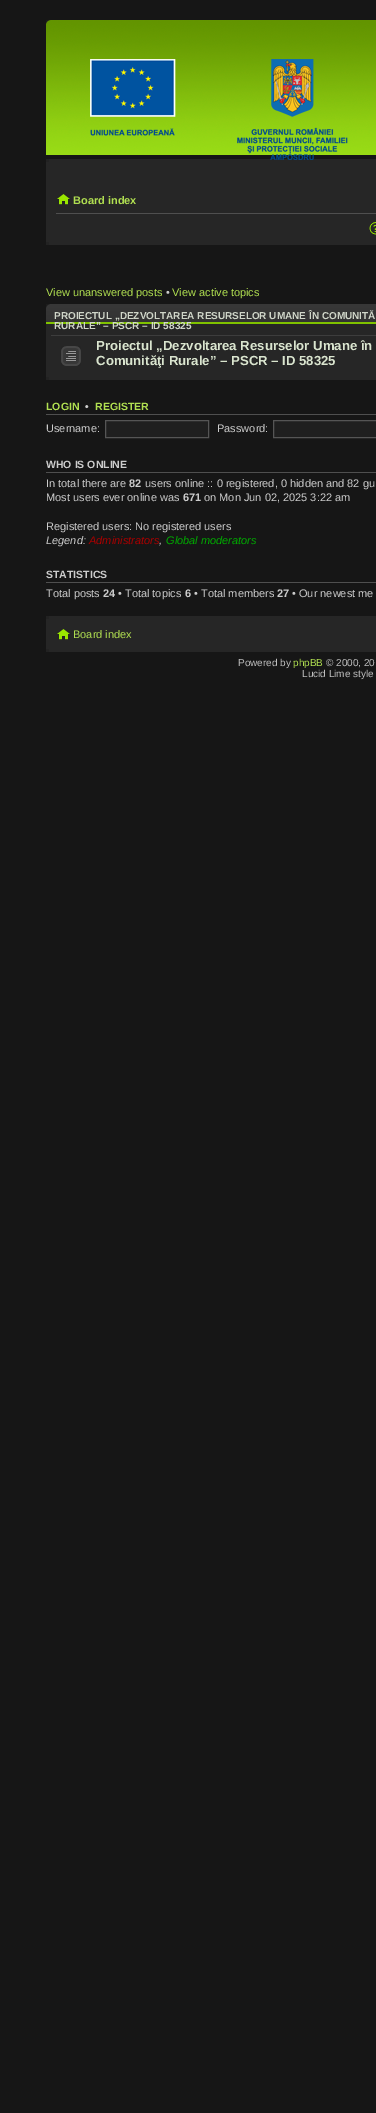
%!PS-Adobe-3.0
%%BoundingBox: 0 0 376 2113
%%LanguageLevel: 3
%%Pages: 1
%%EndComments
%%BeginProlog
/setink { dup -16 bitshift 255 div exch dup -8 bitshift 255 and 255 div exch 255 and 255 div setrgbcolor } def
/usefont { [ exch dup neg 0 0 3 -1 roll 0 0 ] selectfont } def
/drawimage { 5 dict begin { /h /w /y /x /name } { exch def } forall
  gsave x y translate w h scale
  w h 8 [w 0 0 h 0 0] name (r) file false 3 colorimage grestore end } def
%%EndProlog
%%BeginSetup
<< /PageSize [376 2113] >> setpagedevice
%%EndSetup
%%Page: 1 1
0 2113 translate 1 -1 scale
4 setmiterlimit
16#161616 setink
0 0 376 2113 rectfill
(img1.raw) 46 20 330 135 drawimage
(img2.raw) 46 20 5 4 drawimage
16#262626 setink
46 159 330 86 rectfill
(img3.raw) 90 59 258 101 drawimage
16#222222 setink
46 159 3 3 rectfill
16#4F4F4F setink
56 213 320 1 rectfill
(img4.raw) 57 194 13 11 drawimage
/LiberationSans-Bold 11 usefont
16#B1E051 setink
73 204 moveto (Board index) show
(img5.raw) 369 222 7 13 drawimage
16#222222 setink
46 242 3 3 rectfill
/LiberationSans-Regular 11 usefont
16#B1E051 setink
46 296 moveto (View unanswered posts) show
16#CCCCCC setink
166 296 moveto (•) show
16#B1E051 setink
172 296 moveto (View active topics) show
16#262626 setink
46 324 330 56 rectfill
(img6.raw) 46 304 330 20 drawimage
(img7.raw) 46 304 4 4 drawimage
/LiberationSans-Bold 10 usefont
16#D0D6C9 setink
54 319 moveto (PROIECTUL „DEZVOLTAREA RESURSELOR UMANE ÎN COMUNITĂ) show
54 329 moveto (RURALE” – PSCR – ID 58325) show
16#3D3D3D setink
51 335 325 1 rectfill
(img8.raw) 61 346 20 20 drawimage
/LiberationSans-Bold 13.2 usefont
16#DAE5CF setink
96 350 moveto (Proiectul „Dezvoltarea Resurselor Umane în) show
96 365 moveto (Comunităţi Rurale” – PSCR – ID 58325) show
16#222222 setink
46 377 3 3 rectfill
16#4F4F4F setink
46 414 330 1 rectfill
/LiberationSans-Bold 10.5 usefont
16#B1E051 setink
46 410 moveto (LOGIN) show
16#CCCCCC setink
85 410 moveto (•) show
16#B1E051 setink
95 410 moveto (REGISTER) show
/LiberationSans-Regular 11 usefont
16#CCCCCC setink
46 432 moveto (Username:) show
16#1F1F1F setink
105.5 420.5 moveto 208.5 420.5 lineto 208.5 437.5 lineto 105.5 437.5 lineto closepath gsave fill grestore
16#555555 setink
stroke
16#CCCCCC setink
217 432 moveto (Password:) show
16#1F1F1F setink
273.5 420.5 moveto 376.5 420.5 lineto 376.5 437.5 lineto 273.5 437.5 lineto closepath gsave fill grestore
16#555555 setink
stroke
16#4F4F4F setink
46 472 330 1 rectfill
/LiberationSans-Bold 10.5 usefont
16#CCCCCC setink
46 468 moveto (WHO IS ONLINE) show
/LiberationSans-Regular 11 usefont
46 487 moveto (In total there are) show
/LiberationSans-Bold 11 usefont
129 487 moveto (82) show
/LiberationSans-Regular 11 usefont
145 487 moveto (users online :: 0 registered, 0 hidden and 82 gu) show
46 501 moveto (Most users ever online was) show
/LiberationSans-Bold 11 usefont
183 501 moveto (671) show
/LiberationSans-Regular 11 usefont
204 501 moveto (on Mon Jun 02, 2025 3:22 am) show
46 530 moveto (Registered users: No registered users) show
/LiberationSans-Italic 11 usefont
46 544 moveto (Legend:) show
16#AA0000 setink
89 544 moveto (Administrators) show
16#CCCCCC setink
159 544 moveto (,) show
16#00AA00 setink
166 544 moveto (Global moderators) show
16#4F4F4F setink
46 582 330 1 rectfill
/LiberationSans-Bold 10.5 usefont
16#CCCCCC setink
46 578 moveto (STATISTICS) show
/LiberationSans-Regular 11 usefont
46 597 moveto (Total posts) show
/LiberationSans-Bold 11 usefont
103 597 moveto (24) show
/LiberationSans-Regular 11 usefont
118 597 moveto (• Total topics) show
/LiberationSans-Bold 11 usefont
185 597 moveto (6) show
/LiberationSans-Regular 11 usefont
194 597 moveto (• Total members) show
/LiberationSans-Bold 11 usefont
277 597 moveto (27) show
/LiberationSans-Regular 11 usefont
292 597 moveto (• Our newest me) show
16#262626 setink
46 616 330 36 rectfill
16#222222 setink
46 616 3 3 rectfill
(img4.raw) 57 629 13 11 drawimage
16#B1E051 setink
73 638 moveto (Board index) show
16#222222 setink
46 649 3 3 rectfill
/LiberationSans-Regular 10 usefont
16#BFBFBF setink
238 666 moveto (Powered by) show
16#B1E051 setink
293 666 moveto (phpBB) show
16#BFBFBF setink
326 666 moveto (© 2000, 20) show
302 677 moveto (Lucid Lime style) show
showpage
%%EOF
